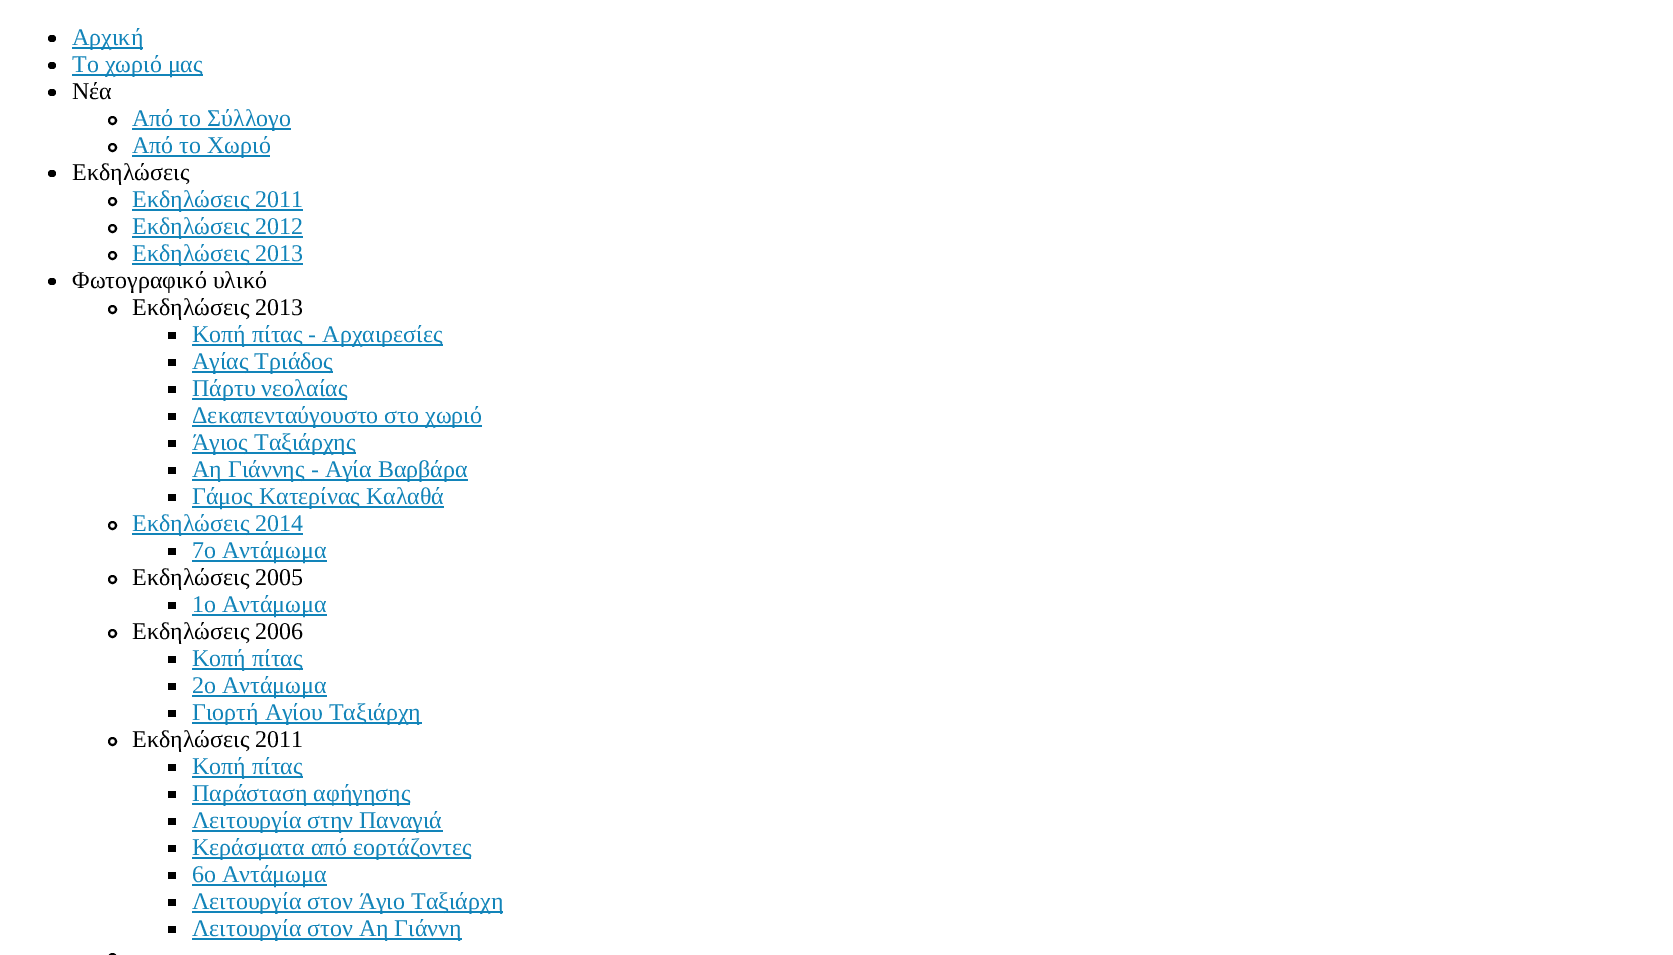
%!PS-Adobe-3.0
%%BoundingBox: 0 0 1673 955
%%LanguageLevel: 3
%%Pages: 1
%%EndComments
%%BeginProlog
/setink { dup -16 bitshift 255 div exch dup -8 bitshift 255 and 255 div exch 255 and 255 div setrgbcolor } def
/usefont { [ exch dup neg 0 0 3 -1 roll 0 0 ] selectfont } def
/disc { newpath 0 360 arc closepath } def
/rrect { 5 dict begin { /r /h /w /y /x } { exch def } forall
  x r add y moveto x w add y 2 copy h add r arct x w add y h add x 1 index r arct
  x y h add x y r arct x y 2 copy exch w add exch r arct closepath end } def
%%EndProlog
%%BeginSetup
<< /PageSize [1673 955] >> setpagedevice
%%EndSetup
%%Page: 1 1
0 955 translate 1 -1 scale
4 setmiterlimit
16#FFFFFF setink
0 0 1673 955 rectfill
16#000000 setink
48 35 8 7 3.5 rrect fill
16#1284B9 setink
72 47 71 2 rectfill
/LiberationSerif-Regular 24 usefont
72 45 moveto (Αρχική) show
16#000000 setink
48 62 8 7 3.5 rrect fill
16#1284B9 setink
72 74 131 2 rectfill
72 72 moveto (Το χωριό μας) show
16#000000 setink
48 89 8 7 3.5 rrect fill
72 99 moveto (Νέα) show
2 setlinewidth
112.5 120.5 3.5 disc stroke
16#1284B9 setink
132 128 159 2 rectfill
132 126 moveto (Από το Σύλλογο) show
16#000000 setink
112.5 147.5 3.5 disc stroke
16#1284B9 setink
132 155 138 2 rectfill
132 153 moveto (Από το Χωριό) show
16#000000 setink
48 170 8 7 3.5 rrect fill
72 180 moveto (Εκδηλώσεις) show
112.5 201.5 3.5 disc stroke
16#1284B9 setink
132 209 171 2 rectfill
132 207 moveto (Εκδηλώσεις 2011) show
16#000000 setink
112.5 228.5 3.5 disc stroke
16#1284B9 setink
132 236 171 2 rectfill
132 234 moveto (Εκδηλώσεις 2012) show
16#000000 setink
112.5 255.5 3.5 disc stroke
16#1284B9 setink
132 263 171 2 rectfill
132 261 moveto (Εκδηλώσεις 2013) show
16#000000 setink
48 278 8 7 3.5 rrect fill
72 288 moveto (Φωτογραφικό υλικό) show
112.5 309.5 3.5 disc stroke
132 315 moveto (Εκδηλώσεις 2013) show
168 332 8 7 rectfill
16#1284B9 setink
192 344 251 2 rectfill
192 342 moveto (Κοπή πίτας - Αρχαιρεσίες) show
16#000000 setink
168 359 8 7 rectfill
16#1284B9 setink
192 371 141 2 rectfill
192 369 moveto (Αγίας Τριάδος) show
16#000000 setink
168 386 8 7 rectfill
16#1284B9 setink
192 398 155 2 rectfill
192 396 moveto (Πάρτυ νεολαίας) show
16#000000 setink
168 413 8 7 rectfill
16#1284B9 setink
192 425 290 2 rectfill
192 423 moveto (Δεκαπενταύγουστο στο χωριό) show
16#000000 setink
168 440 8 7 rectfill
16#1284B9 setink
192 452 164 2 rectfill
192 450 moveto (Άγιος Ταξιάρχης) show
16#000000 setink
168 467 8 7 rectfill
16#1284B9 setink
192 479 276 2 rectfill
192 477 moveto (Αη Γιάννης - Αγία Βαρβάρα) show
16#000000 setink
168 494 8 7 rectfill
16#1284B9 setink
192 506 252 2 rectfill
192 504 moveto (Γάμος Κατερίνας Καλαθά) show
16#000000 setink
112.5 525.5 3.5 disc stroke
16#1284B9 setink
132 533 171 2 rectfill
132 531 moveto (Εκδηλώσεις 2014) show
16#000000 setink
168 548 8 7 rectfill
16#1284B9 setink
192 560 135 2 rectfill
192 558 moveto (7ο Αντάμωμα) show
16#000000 setink
112.5 579.5 3.5 disc stroke
132 585 moveto (Εκδηλώσεις 2005) show
168 602 8 7 rectfill
16#1284B9 setink
192 614 135 2 rectfill
192 612 moveto (1o Αντάμωμα) show
16#000000 setink
112.5 633.5 3.5 disc stroke
132 639 moveto (Εκδηλώσεις 2006) show
168 656 8 7 rectfill
16#1284B9 setink
192 668 111 2 rectfill
192 666 moveto (Κοπή πίτας) show
16#000000 setink
168 683 8 7 rectfill
16#1284B9 setink
192 695 135 2 rectfill
192 693 moveto (2o Αντάμωμα) show
16#000000 setink
168 710 8 7 rectfill
16#1284B9 setink
192 722 230 2 rectfill
192 720 moveto (Γιορτή Αγίου Ταξιάρχη) show
16#000000 setink
112.5 741.5 3.5 disc stroke
132 747 moveto (Εκδηλώσεις 2011) show
168 764 8 7 rectfill
16#1284B9 setink
192 776 111 2 rectfill
192 774 moveto (Κοπή πίτας) show
16#000000 setink
168 791 8 7 rectfill
16#1284B9 setink
192 803 218 2 rectfill
192 801 moveto (Παράσταση αφήγησης) show
16#000000 setink
168 818 8 7 rectfill
16#1284B9 setink
192 830 251 2 rectfill
192 828 moveto (Λειτουργία στην Παναγιά) show
16#000000 setink
168 845 8 7 rectfill
16#1284B9 setink
192 857 279 2 rectfill
192 855 moveto (Κεράσματα από εορτάζοντες) show
16#000000 setink
168 872 8 7 rectfill
16#1284B9 setink
192 884 135 2 rectfill
192 882 moveto (6ο Αντάμωμα) show
16#000000 setink
168 899 8 7 rectfill
16#1284B9 setink
192 911 311 2 rectfill
192 909 moveto (Λειτουργία στον Άγιο Ταξιάρχη) show
16#000000 setink
168 926 8 7 rectfill
16#1284B9 setink
192 938 270 2 rectfill
192 936 moveto (Λειτουργία στον Αη Γιάννη) show
16#000000 setink
112.5 957.5 3.5 disc stroke
showpage
%%EOF
